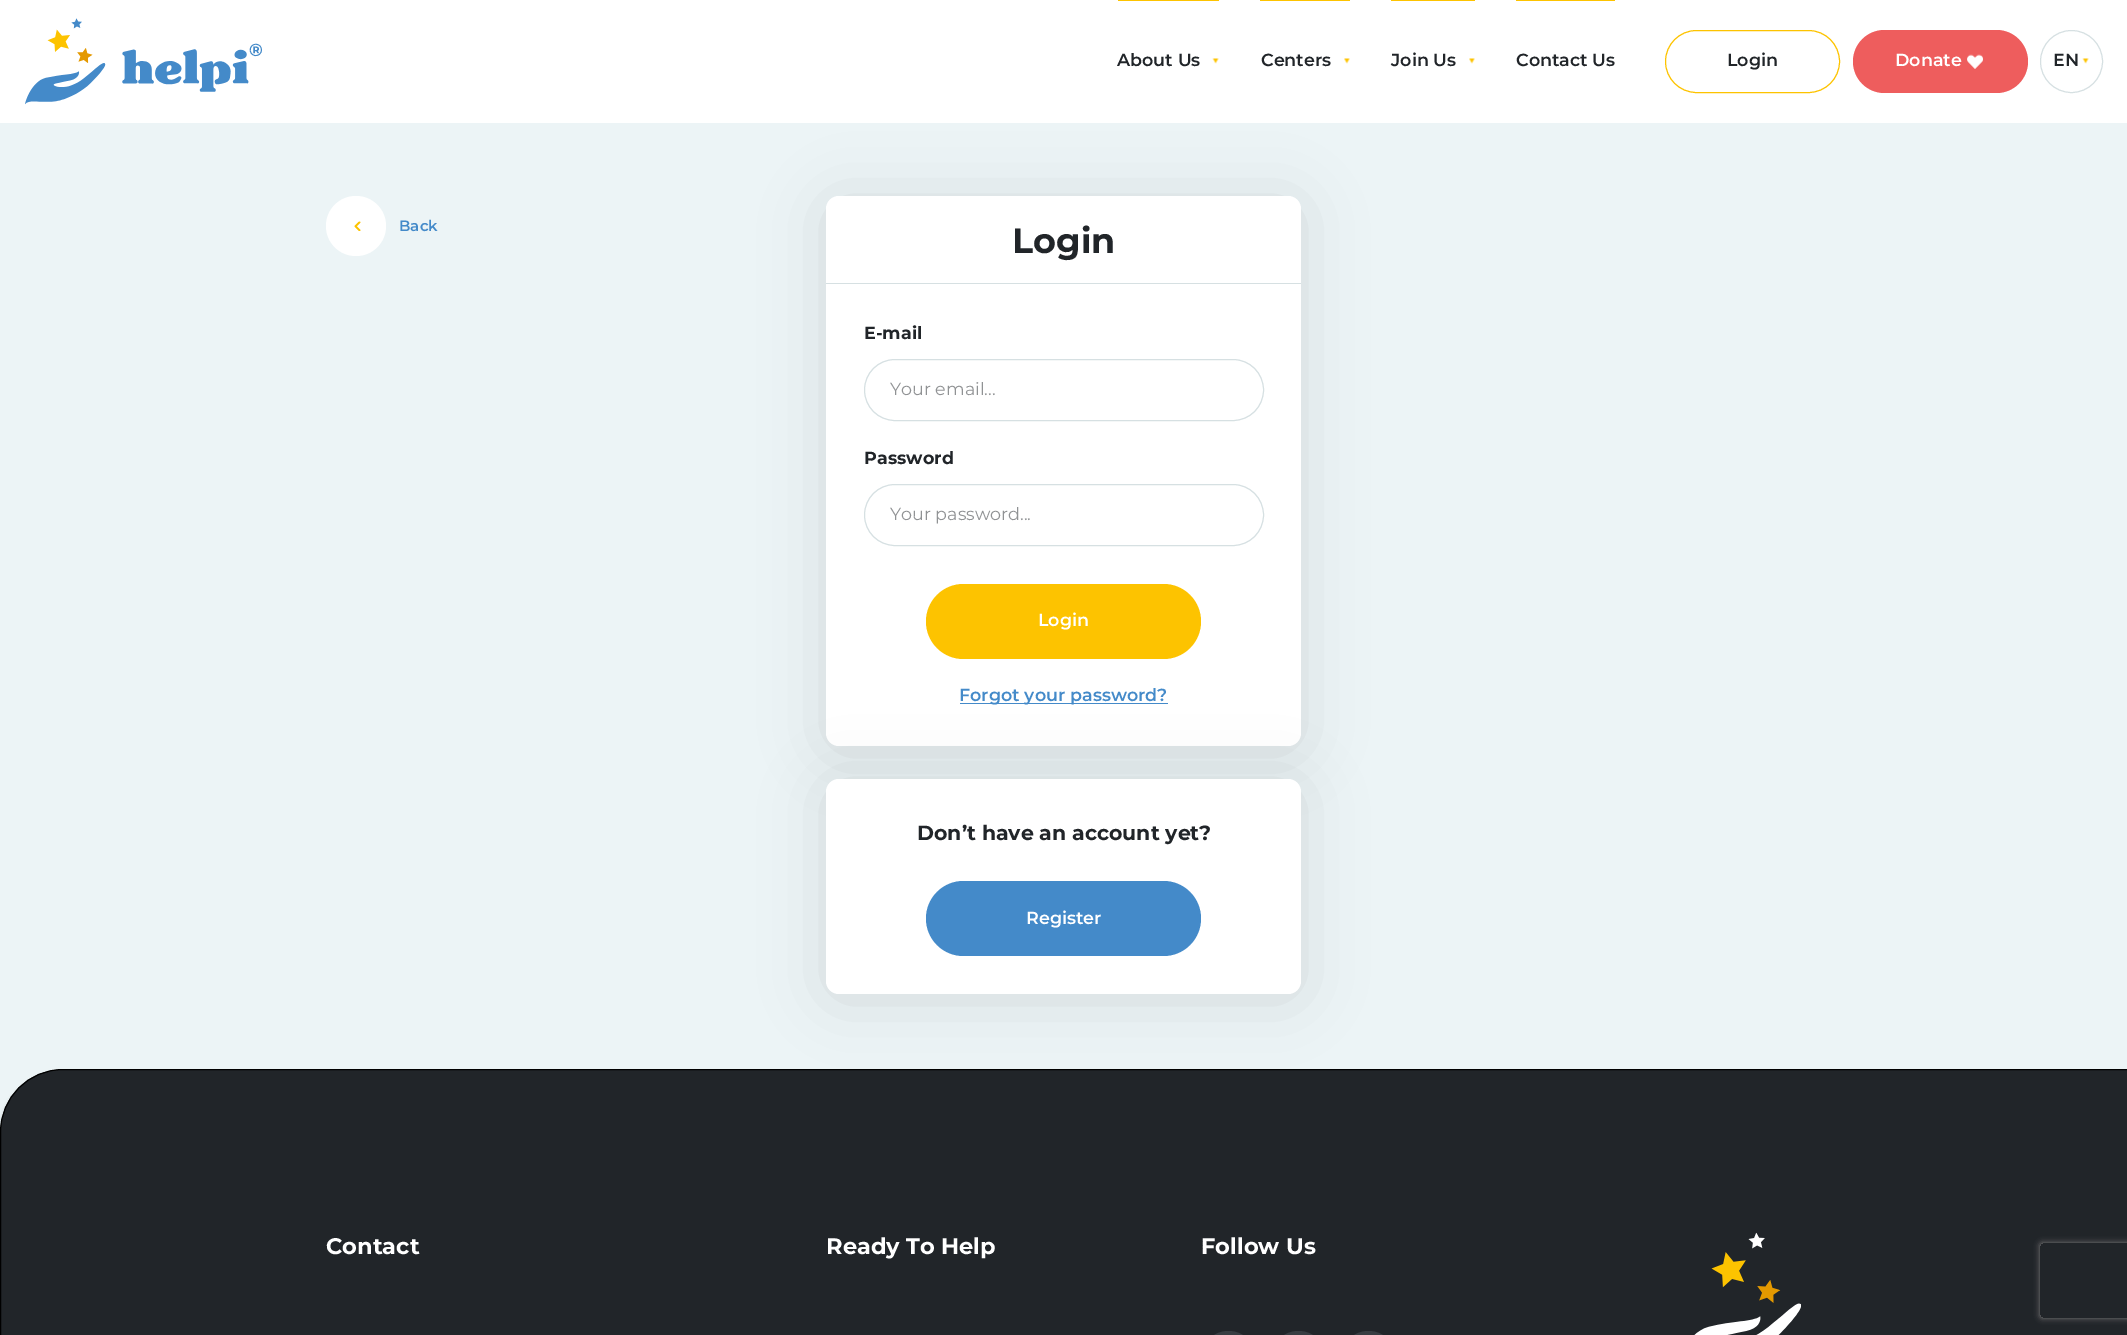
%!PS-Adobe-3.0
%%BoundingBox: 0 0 2127 1335
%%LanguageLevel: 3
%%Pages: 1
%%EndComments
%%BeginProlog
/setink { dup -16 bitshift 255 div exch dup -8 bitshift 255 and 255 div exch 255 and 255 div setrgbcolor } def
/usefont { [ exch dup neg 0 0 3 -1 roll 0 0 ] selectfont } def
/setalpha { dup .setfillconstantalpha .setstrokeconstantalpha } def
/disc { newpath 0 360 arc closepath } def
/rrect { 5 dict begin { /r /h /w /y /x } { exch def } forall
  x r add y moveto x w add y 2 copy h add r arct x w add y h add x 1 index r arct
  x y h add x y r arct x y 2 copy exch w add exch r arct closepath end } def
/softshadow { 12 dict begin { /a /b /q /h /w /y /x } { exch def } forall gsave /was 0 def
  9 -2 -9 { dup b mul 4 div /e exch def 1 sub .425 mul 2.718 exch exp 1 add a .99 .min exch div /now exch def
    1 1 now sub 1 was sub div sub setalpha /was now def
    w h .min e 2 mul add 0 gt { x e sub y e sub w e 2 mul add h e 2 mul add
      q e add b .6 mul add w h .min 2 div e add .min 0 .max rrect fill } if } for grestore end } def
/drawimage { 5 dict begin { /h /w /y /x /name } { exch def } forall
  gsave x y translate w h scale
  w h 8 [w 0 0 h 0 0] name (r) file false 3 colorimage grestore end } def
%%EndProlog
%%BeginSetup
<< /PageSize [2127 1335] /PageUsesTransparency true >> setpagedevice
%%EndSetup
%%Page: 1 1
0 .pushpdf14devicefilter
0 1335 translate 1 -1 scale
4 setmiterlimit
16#ECF4F6 setink
0 0 2127 1335 rectfill
16#000000 setink
826 201 475 550 13 31 0.11 softshadow
16#FFFFFF setink
0 0 2127 123 rectfill
(img1.raw) 25 18 224 87 drawimage
/Montserrat-Bold 17.5 usefont
16#448AC9 setink
249 56 moveto (®) show
16#FDC300 setink
1118 0 101 1 rectfill
/Montserrat-SemiBold 17.5 usefont
16#212529 setink
1117 66 moveto (About Us) show
(img2.raw) 1212 58 7 6 drawimage
16#FDC300 setink
1260 0 90 1 rectfill
16#212529 setink
1261 66 moveto (Centers) show
(img3.raw) 1344 58 6 6 drawimage
16#FDC300 setink
1391 0 84 1 rectfill
16#212529 setink
1391 66 moveto (Join Us) show
(img3.raw) 1469 58 6 6 drawimage
16#FDC300 setink
1516 0 99 1 rectfill
16#212529 setink
1516 66 moveto (Contact Us) show
16#FDC300 setink
1665.5 30.5 174 62 31 rrect stroke
16#212529 setink
1727 66 moveto (Login) show
16#EE5D5D setink
1853 30 175 63 31.5 rrect fill
16#FFFFFF setink
1895 66 moveto (Donate) show
(img4.raw) 1967 54 16 15 drawimage
16#D6E0E2 setink
2071.5 61.5 31 disc stroke
16#212529 setink
2053 66 moveto (EN) show
(img2.raw) 2082 58 7 6 drawimage
16#FFFFFF setink
356 226 30 disc fill
(img5.raw) 354 221 7 10 drawimage
/Montserrat-SemiBold 15 usefont
16#448AC9 setink
399 231 moveto (Back) show
16#FFFFFF setink
826 196 475 550 13 rrect fill
16#D6E0E2 setink
826 283 475 1 rectfill
/Montserrat-Bold 35 usefont
16#212529 setink
1012 253 moveto (Login) show
/Montserrat-Bold 17.5 usefont
864 339 moveto (E-mail) show
16#D6E0E2 setink
864.5 359.5 399 61 30.5 rrect stroke
/Montserrat-Regular 17.5 usefont
16#909294 setink
890 395 moveto (Your email...) show
/Montserrat-Bold 17.5 usefont
16#212529 setink
864 464 moveto (Password) show
16#D6E0E2 setink
864.5 484.5 399 61 30.5 rrect stroke
/Montserrat-Regular 17.5 usefont
16#909294 setink
890 520 moveto (Your password...) show
16#FDC300 setink
926 584 275 75 37.5 rrect fill
/Montserrat-SemiBold 17.5 usefont
16#FFFFFF setink
1038 626 moveto (Login) show
16#448AC9 setink
960 703 208 1 rectfill
959 701 moveto (Forgot your password?) show
16#000000 setink
826 784 475 215 13 31 0.11 softshadow
16#FFFFFF setink
826 779 475 215 13 rrect fill
/Montserrat-Bold 20.5 usefont
16#212529 setink
917 840 moveto (Don’t have an account yet?) show
16#448AC9 setink
926 881 275 75 37.5 rrect fill
/Montserrat-SemiBold 17.5 usefont
16#FFFFFF setink
1026 924 moveto (Register) show
16#000000 setink
0 1074 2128 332 63 2.5 0.25 softshadow
16#212529 setink
63 1069.5 moveto 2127.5 1069.5 lineto 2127.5 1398.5 lineto 0.5 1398.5 lineto 0.5 1132 lineto 0.5 1097.5 28.5 1069.5 63 1069.5 curveto closepath gsave fill grestore
16#000000 setink
stroke
/Montserrat-Bold 22.5 usefont
16#FFFFFF setink
[
    [(Contact) 326 1254]
    [(Ready To Help) 826 1254]
    [(Follow Us) 1201 1254]
] { aload pop moveto show } forall
16#383D42 setink
1201 1331 55 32 27.5 rrect fill
1271 1331 55 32 27.5 rrect fill
1341 1331 55 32 27.5 rrect fill
(img6.raw) 1694 1232 107 103 drawimage
gsave
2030 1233 moveto 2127 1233 lineto 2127 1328 lineto 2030 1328 lineto closepath 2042.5 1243 moveto 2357.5 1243 lineto 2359 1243 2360 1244 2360 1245.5 curveto 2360 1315.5 lineto 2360 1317 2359 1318 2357.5 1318 curveto 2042.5 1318 lineto 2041 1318 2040 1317 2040 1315.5 curveto 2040 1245.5 lineto 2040 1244 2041 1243 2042.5 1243 curveto closepath eoclip newpath
16#808080 setink
2040 1243 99 75 2.5 3 1 softshadow
grestore
.poppdf14devicefilter showpage
%%EOF
